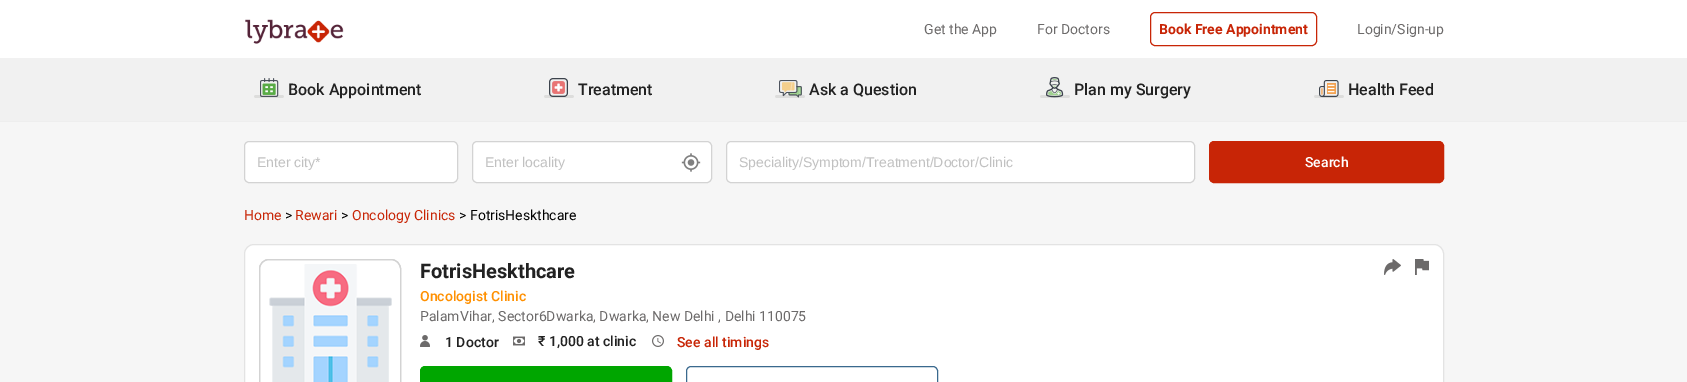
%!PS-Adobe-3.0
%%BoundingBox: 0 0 1687 382
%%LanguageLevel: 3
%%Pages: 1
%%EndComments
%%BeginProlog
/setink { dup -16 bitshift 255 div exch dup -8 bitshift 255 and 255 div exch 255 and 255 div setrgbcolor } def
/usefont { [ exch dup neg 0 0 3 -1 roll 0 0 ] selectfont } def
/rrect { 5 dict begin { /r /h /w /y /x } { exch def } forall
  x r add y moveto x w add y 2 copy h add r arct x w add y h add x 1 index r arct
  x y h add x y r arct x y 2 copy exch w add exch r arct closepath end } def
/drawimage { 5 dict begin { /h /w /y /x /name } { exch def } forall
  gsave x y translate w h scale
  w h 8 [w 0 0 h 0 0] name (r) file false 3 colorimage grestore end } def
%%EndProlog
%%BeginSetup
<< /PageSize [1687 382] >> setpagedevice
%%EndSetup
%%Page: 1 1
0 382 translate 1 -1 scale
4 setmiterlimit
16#EEEEEE setink
0 0 1687 382 rectfill
16#FFFFFF setink
0 0 1687 58 rectfill
(img1.raw) 245 19 99 25 drawimage
/Roboto-Regular 14 usefont
16#6C6A6A setink
924 34 moveto (Get the App) show
1037 34 moveto (For Doctors) show
16#C82506 setink
1150.5 12.5 166 33 4.5 rrect stroke
/Roboto-Bold 14 usefont
1159 34 moveto (Book Free Appointment) show
/Roboto-Regular 14 usefont
16#6C6A6A setink
1357 34 moveto (Login/Sign-up) show
16#F1F1F1 setink
0 58 1687 63 rectfill
(img2.raw) 254 78 30 20 drawimage
/Roboto-Medium 16 usefont
16#222222 setink
288 95 moveto (Book Appointment) show
(img3.raw) 544 78 30 20 drawimage
578 95 moveto (Treatment) show
(img4.raw) 775 80 30 18 drawimage
809 95 moveto (Ask a Question) show
(img5.raw) 1040 77 30 21 drawimage
1074 95 moveto (Plan my Surgery) show
(img6.raw) 1314 80 30 18 drawimage
1348 95 moveto (Health Feed) show
16#F6F6F6 setink
0 122 1687 260 rectfill
16#FFFFFF setink
244.5 141.5 213 41 4.5 rrect gsave fill grestore
16#D3D3D3 setink
stroke
/LiberationSans-Regular 14 usefont
16#C1C1C1 setink
257 167 moveto (Enter city*) show
16#FFFFFF setink
472.5 141.5 239 41 4.5 rrect gsave fill grestore
16#D3D3D3 setink
stroke
16#C1C1C1 setink
485 167 moveto (Enter locality) show
(img7.raw) 681 153 20 19 drawimage
16#FFFFFF setink
726.5 141.5 468 41 4.5 rrect gsave fill grestore
16#D3D3D3 setink
stroke
16#C1C1C1 setink
739 167 moveto (Speciality/Symptom/Treatment/Doctor/Clinic) show
16#C82506 setink
1209.5 141.5 234 41 4.5 rrect gsave fill grestore
stroke
/Roboto-Medium 14 usefont
16#FFFFFF setink
1305 167 moveto (Search) show
/Roboto-Regular 14 usefont
16#C82506 setink
244 220 moveto (Home) show
16#000000 setink
285 220 moveto (>) show
16#C82506 setink
295 220 moveto (Rewari) show
16#000000 setink
341 220 moveto (>) show
16#C82506 setink
352 220 moveto (Oncology Clinics) show
16#000000 setink
459 220 moveto (> FotrisHeskthcare) show
16#FFFFFF setink
244.5 244.5 1199 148 9.5 rrect gsave fill grestore
16#E3E3E3 setink
stroke
16#D3D3D3 setink
259.5 259.5 141 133 9.5 rrect stroke
259.5 259.5 141 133 9.5 rrect stroke
(img8.raw) 269 264 123 118 drawimage
/Roboto-Bold 20 usefont
16#222222 setink
420 278 moveto (FotrisHeskthcare) show
/Roboto-Medium 14 usefont
16#FF9000 setink
420 301 moveto (Oncologist Clinic) show
/Roboto-Regular 14 usefont
16#6C6A6A setink
420 321 moveto (PalamVihar, Sector6Dwarka, Dwarka, New Delhi , Delhi 110075) show
(img9.raw) 420 335 10 12 drawimage
/Roboto-Medium 14 usefont
16#222222 setink
445 347 moveto (1 Doctor) show
(img10.raw) 513 336 12 10 drawimage
538 346 moveto (₹ 1,000 at clinic) show
(img11.raw) 652 335 12 12 drawimage
16#C82506 setink
677 347 moveto (See all timings) show
16#00A600 setink
420.5 366.5 251 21 4.5 rrect gsave fill grestore
stroke
16#3A698E setink
686.5 366.5 251 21 4.5 rrect stroke
(img12.raw) 1384 259 17 16 drawimage
(img13.raw) 1415 259 14 16 drawimage
showpage
%%EOF
